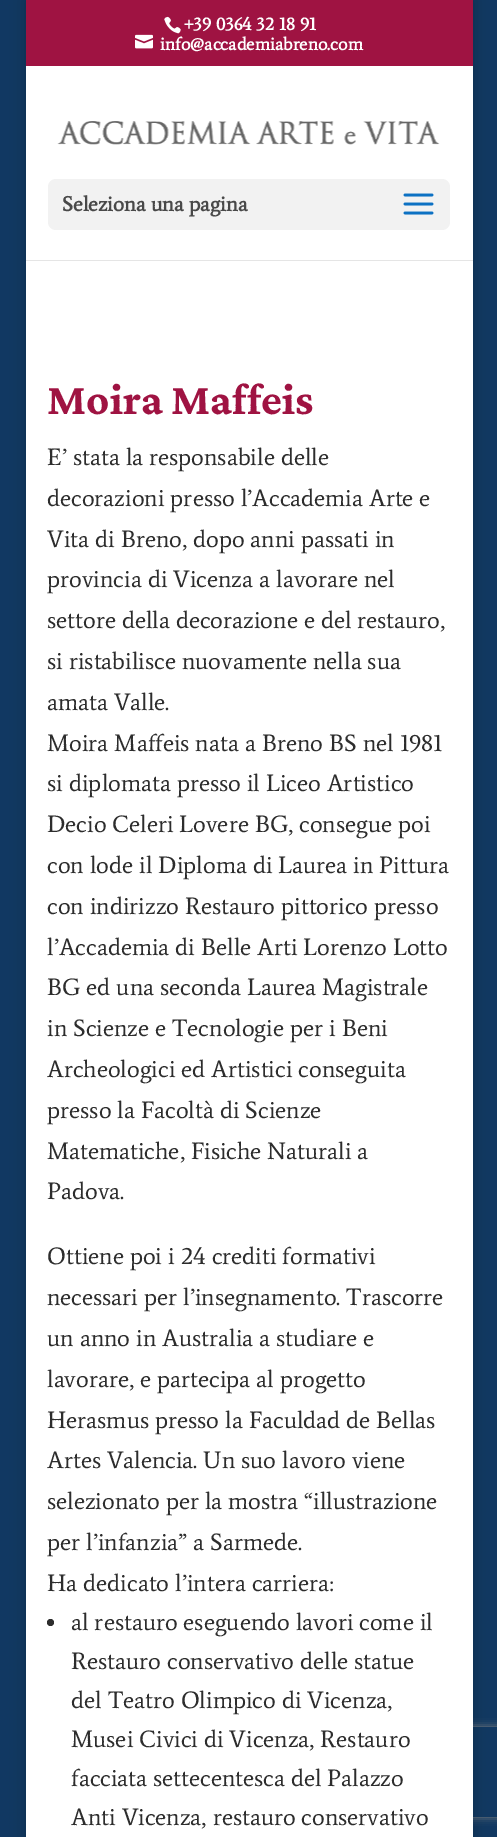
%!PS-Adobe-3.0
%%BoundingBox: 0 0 497 1837
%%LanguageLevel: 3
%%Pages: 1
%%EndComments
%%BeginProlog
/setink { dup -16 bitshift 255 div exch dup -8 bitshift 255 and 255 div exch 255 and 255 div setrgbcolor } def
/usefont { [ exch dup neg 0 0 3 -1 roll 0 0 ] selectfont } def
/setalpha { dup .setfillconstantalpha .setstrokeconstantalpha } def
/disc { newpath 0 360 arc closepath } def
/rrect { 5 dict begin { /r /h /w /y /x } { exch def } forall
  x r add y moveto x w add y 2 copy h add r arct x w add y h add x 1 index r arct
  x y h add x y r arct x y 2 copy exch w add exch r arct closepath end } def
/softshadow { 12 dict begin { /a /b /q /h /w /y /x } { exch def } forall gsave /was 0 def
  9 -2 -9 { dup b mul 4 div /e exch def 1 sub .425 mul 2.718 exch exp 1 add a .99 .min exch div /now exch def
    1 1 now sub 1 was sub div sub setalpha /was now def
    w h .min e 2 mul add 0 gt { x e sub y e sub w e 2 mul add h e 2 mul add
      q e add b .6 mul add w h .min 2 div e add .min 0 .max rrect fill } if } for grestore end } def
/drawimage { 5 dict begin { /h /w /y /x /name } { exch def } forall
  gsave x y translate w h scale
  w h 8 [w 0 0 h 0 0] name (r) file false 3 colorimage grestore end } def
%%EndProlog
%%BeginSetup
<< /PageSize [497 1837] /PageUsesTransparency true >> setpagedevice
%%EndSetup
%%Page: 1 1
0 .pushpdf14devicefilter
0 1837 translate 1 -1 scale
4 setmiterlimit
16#113862 setink
0 0 497 1837 rectfill
16#000000 setink
26 0 447 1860 0 7.5 0.2 softshadow
gsave
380 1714 moveto 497 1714 lineto 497 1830 lineto 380 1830 lineto closepath 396 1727 moveto 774 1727 lineto 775.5 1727 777 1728.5 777 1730 curveto 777 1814 lineto 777 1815.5 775.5 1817 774 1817 curveto 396 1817 lineto 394.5 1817 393 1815.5 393 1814 curveto 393 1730 lineto 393 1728.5 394.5 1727 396 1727 curveto closepath eoclip newpath
16#808080 setink
393 1727 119 90 3 4 1 softshadow
grestore
16#FFFFFF setink
26 260 447 1577 rectfill
0.1 setalpha
16#000000 setink
26 260 moveto 26 261 lineto 473 261 lineto 473 48 lineto 472 48 lineto 472 260 lineto closepath fill
1 setalpha
16#9F1342 setink
26 0 447 66 rectfill
(img1.raw) 164 16 17 18 drawimage
/Average-Bold 18 usefont
16#FFFFFF setink
184 30 moveto (+39 0364 32 18 91) show
(img2.raw) 135 34 18 15 drawimage
160 50 moveto (info@accademiabreno.com) show
26 66 447 194 rectfill
(img3.raw) 57 121 383 24 drawimage
16#F2F2F2 setink
48 179 402 51 8 rrect fill
/Average-Bold 21 usefont
16#494949 setink
62 211 moveto (Seleziona una pagina) show
(img4.raw) 403 193 31 22 drawimage
/CrimsonPro-Bold 45 usefont
16#9F1342 setink
47 414 moveto (Moira Maffeis) show
/Average-Regular 24 usefont
16#2D2D2D setink
[
    [(E’ stata la responsabile delle) 47 465]
    [(decorazioni presso l’Accademia Arte e) 47 506]
    [(Vita di Breno, dopo anni passati in) 47 547]
    [(provincia di Vicenza a lavorare nel) 47 587]
    [(settore della decorazione e del restauro,) 47 628]
    [(si ristabilisce nuovamente nella sua) 47 669]
    [(amata Valle.) 47 710]
    [(Moira Maffeis nata a Breno BS nel 1981) 47 751]
    [(si diplomata presso il Liceo Artistico) 47 791]
    [(Decio Celeri Lovere BG, consegue poi) 47 832]
    [(con lode il Diploma di Laurea in Pittura) 47 873]
    [(con indirizzo Restauro pittorico presso) 47 914]
    [(l’Accademia di Belle Arti Lorenzo Lotto) 47 955]
    [(BG ed una seconda Laurea Magistrale) 47 995]
    [(in Scienze e Tecnologie per i Beni) 47 1036]
    [(Archeologici ed Artistici conseguita) 47 1077]
    [(presso la Facoltà di Scienze) 47 1118]
    [(Matematiche, Fisiche Naturali a) 47 1159]
    [(Padova.) 47 1199]
    [(Ottiene poi i 24 crediti formativi) 47 1264]
    [(necessari per l’insegnamento. Trascorre) 47 1305]
    [(un anno in Australia a studiare e) 47 1346]
    [(lavorare, e partecipa al progetto) 47 1387]
    [(Herasmus presso la Faculdad de Bellas) 47 1428]
    [(Artes Valencia. Un suo lavoro viene) 47 1468]
    [(selezionato per la mostra “illustrazione) 47 1509]
    [(per l’infanzia” a Sarmede.) 47 1550]
    [(Ha dedicato l’intera carriera:) 47 1591]
] { aload pop moveto show } forall
50.5 1622.5 3.5 disc fill
[
    [(al restauro eseguendo lavori come il) 71 1630]
    [(Restauro conservativo delle statue) 71 1669]
    [(del Teatro Olimpico di Vicenza,) 71 1708]
    [(Musei Civici di Vicenza, Restauro) 71 1747]
    [(facciata settecentesca del Palazzo) 71 1786]
    [(Anti Vicenza, restauro conservativo) 71 1825]
] { aload pop moveto show } forall
.poppdf14devicefilter showpage
%%EOF
